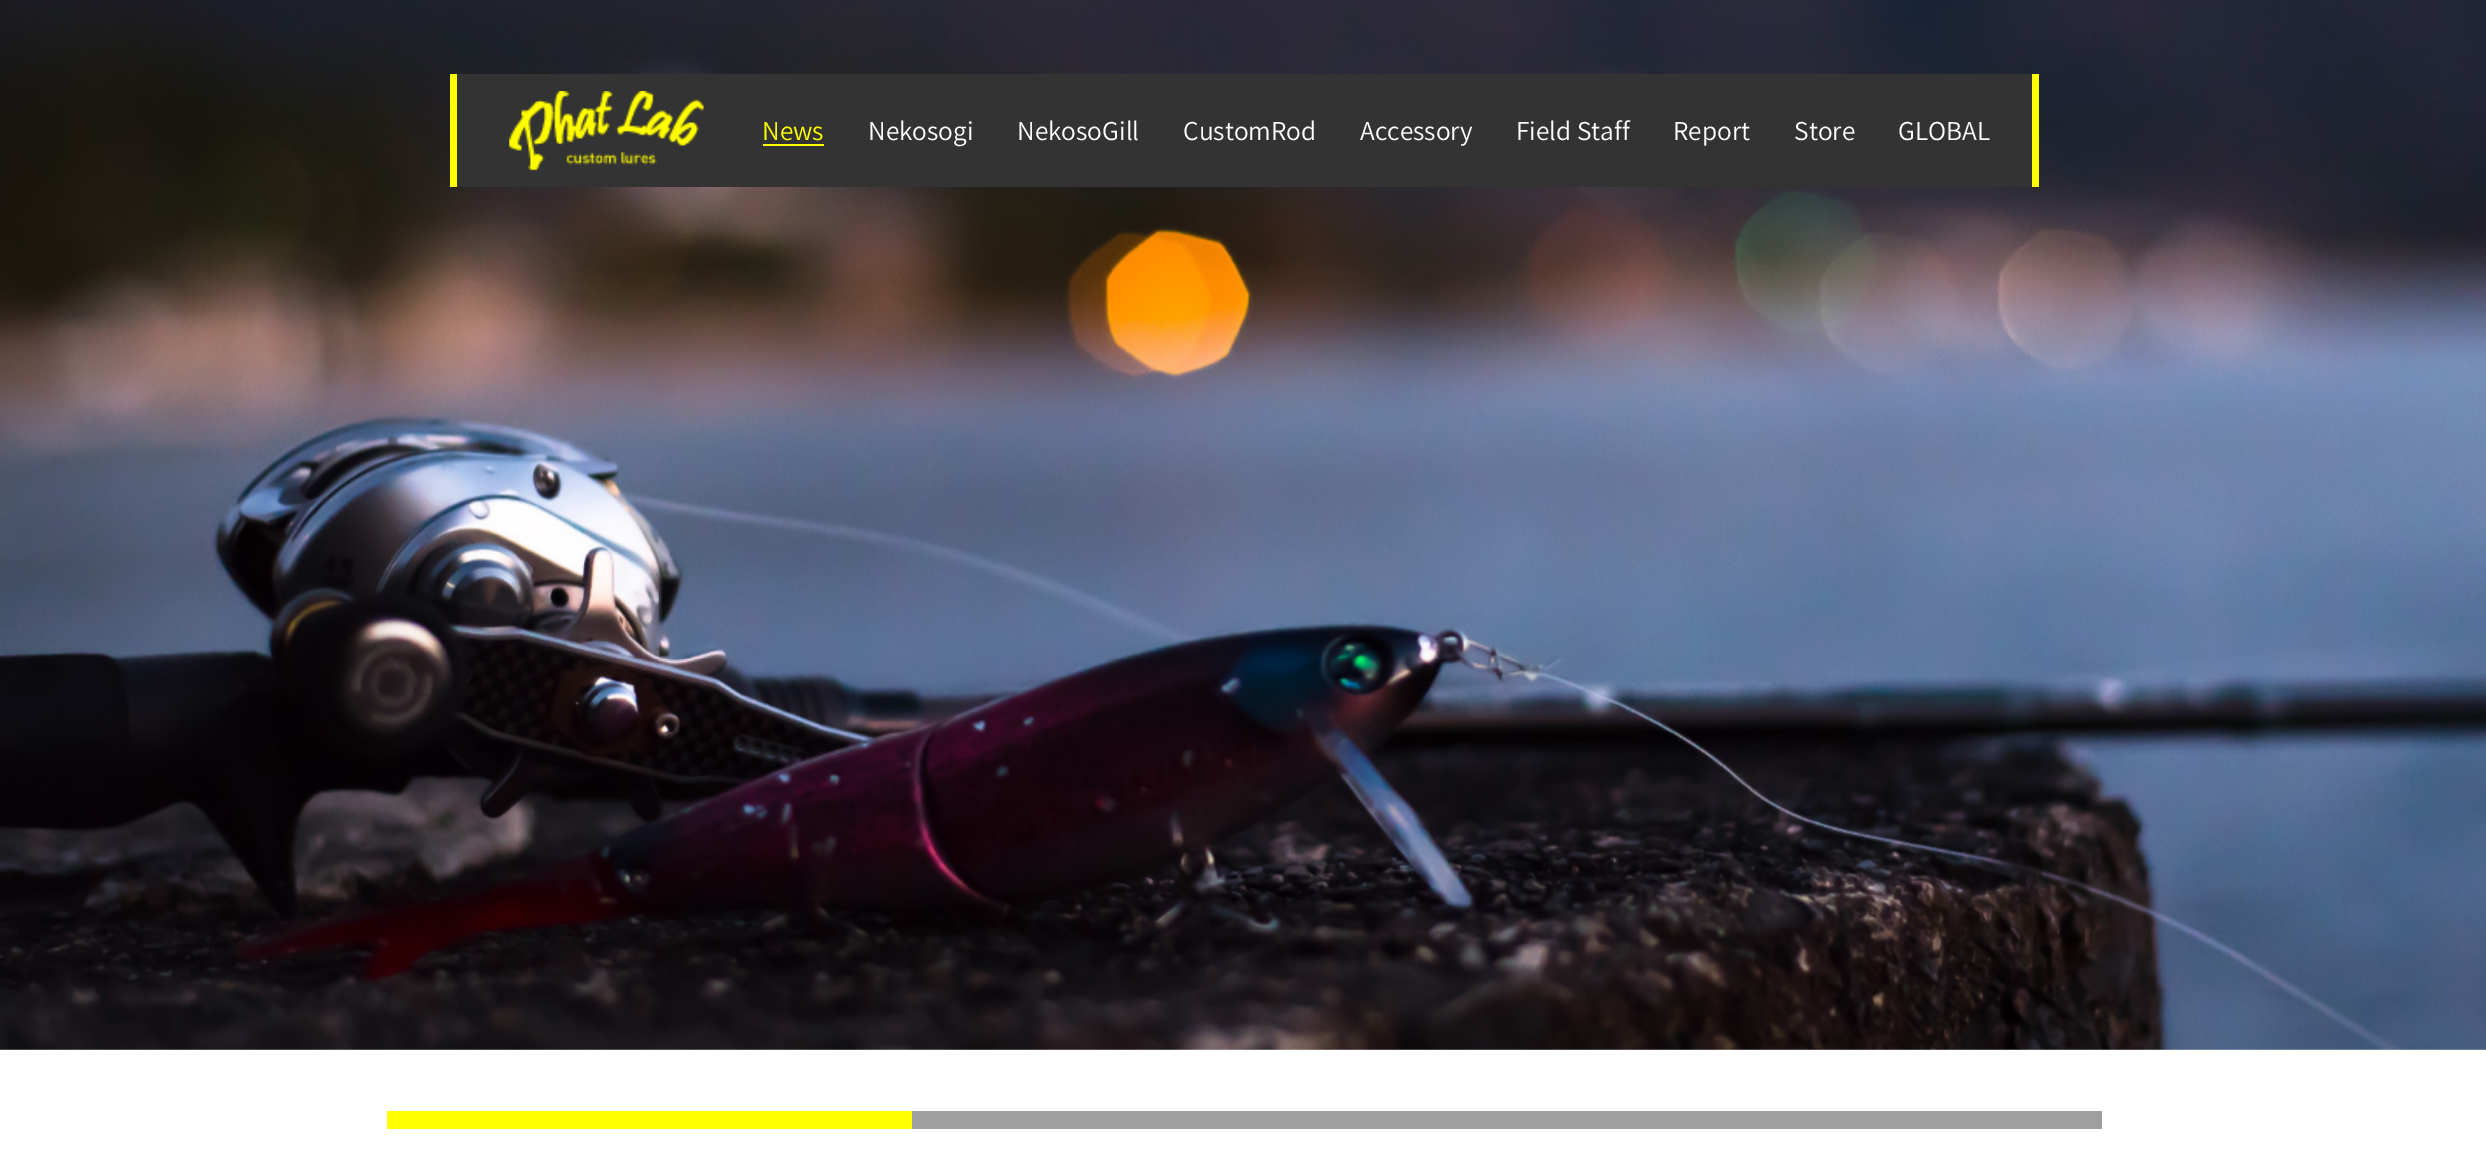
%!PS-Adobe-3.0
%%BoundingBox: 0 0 2486 1168
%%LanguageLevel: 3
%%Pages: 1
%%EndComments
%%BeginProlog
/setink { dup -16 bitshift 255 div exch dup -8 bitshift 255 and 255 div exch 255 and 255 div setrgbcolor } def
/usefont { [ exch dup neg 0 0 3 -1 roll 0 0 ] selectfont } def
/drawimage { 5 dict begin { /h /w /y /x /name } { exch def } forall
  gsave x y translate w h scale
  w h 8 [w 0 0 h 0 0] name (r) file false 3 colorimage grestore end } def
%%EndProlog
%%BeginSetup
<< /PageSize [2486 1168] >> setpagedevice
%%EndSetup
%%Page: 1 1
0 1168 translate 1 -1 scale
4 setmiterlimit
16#FFFFFF setink
0 0 2486 1168 rectfill
(img1.raw) 0 0 2486 1050 drawimage
[
    [457 74 1575 113 16#333333]
    [2032 74 7 113 16#FFFF00]
    [450 74 7 113 16#FFFF00]
] { aload pop setink rectfill } forall
(img2.raw) 509 91 195 80 drawimage
/NotoSansJP-Light 24.5 usefont
762 140 moveto (News) show
763 144 61 2 rectfill
16#FFFFFF setink
[
    [(Nekosogi) 868 140]
    [(NekosoGill) 1017 140]
    [(CustomRod) 1183 140]
    [(Accessory) 1360 140]
    [(Field Staff) 1516 140]
    [(Report) 1673 140]
    [(Store) 1794 140]
    [(GLOBAL) 1898 140]
] { aload pop moveto show } forall
16#FFFF00 setink
387 1111 525 18 rectfill
16#9F9F9F setink
912 1111 1190 18 rectfill
showpage
%%EOF
